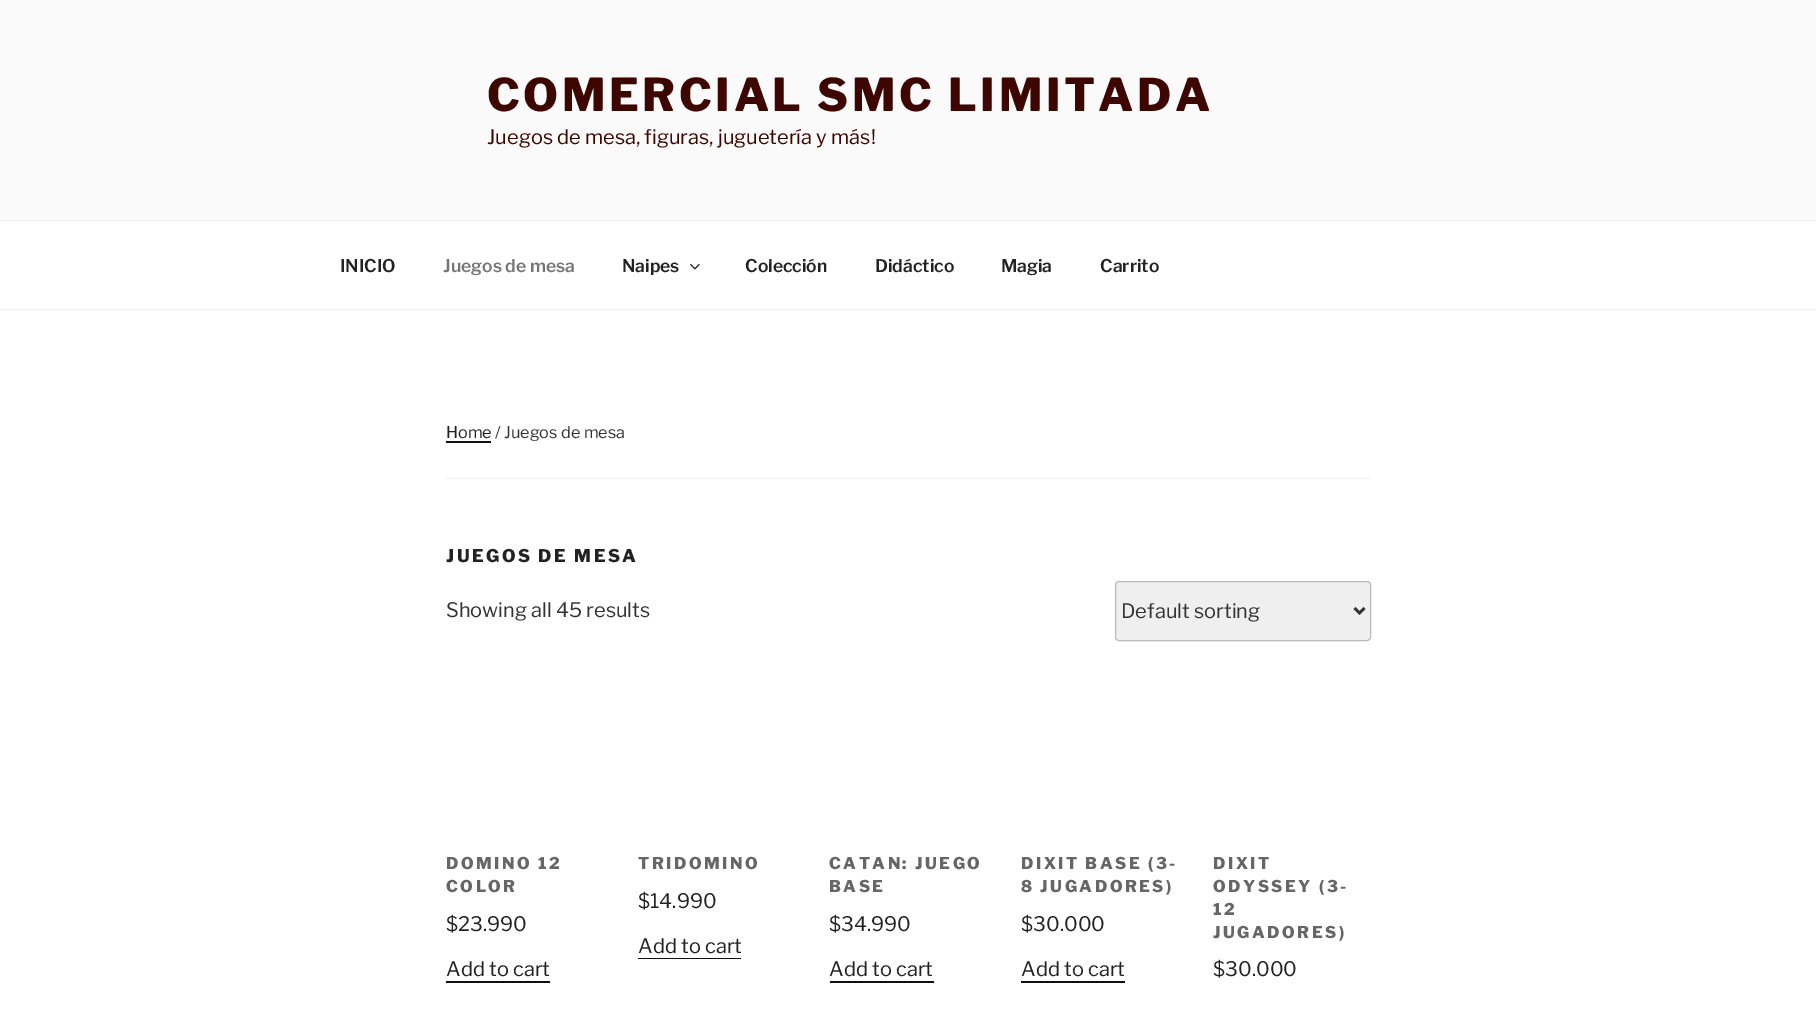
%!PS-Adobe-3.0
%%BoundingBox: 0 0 1816 1015
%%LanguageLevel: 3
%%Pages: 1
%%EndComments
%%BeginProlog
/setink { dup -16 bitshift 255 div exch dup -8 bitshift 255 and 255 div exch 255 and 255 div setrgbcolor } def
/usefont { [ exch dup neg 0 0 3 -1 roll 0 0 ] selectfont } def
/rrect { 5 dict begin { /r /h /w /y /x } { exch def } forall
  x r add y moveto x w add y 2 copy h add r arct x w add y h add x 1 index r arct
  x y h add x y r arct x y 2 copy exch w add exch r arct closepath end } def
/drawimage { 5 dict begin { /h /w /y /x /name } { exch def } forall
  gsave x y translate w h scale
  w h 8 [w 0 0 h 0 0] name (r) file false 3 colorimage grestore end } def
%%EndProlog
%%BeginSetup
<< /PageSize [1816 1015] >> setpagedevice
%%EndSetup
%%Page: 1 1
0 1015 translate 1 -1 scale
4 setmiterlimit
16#FFFFFF setink
0 0 1816 1015 rectfill
16#FAFAFA setink
0 0 1816 220 rectfill
/LibreFranklin-ExtraBold 45 usefont
16#3D0600 setink
487 111 moveto 3.6 0 (COMERCIAL SMC LIMITADA) ashow
/LibreFranklin-Regular 20 usefont
487 144 moveto (Juegos de mesa, figuras, juguetería y más!) show
16#EEEEEE setink
0 220 1816 1 rectfill
0 309 1816 1 rectfill
/LibreFranklin-SemiBold 17.5 usefont
16#222222 setink
340 272 moveto (INICIO) show
16#767676 setink
443 272 moveto (Juegos de mesa) show
16#222222 setink
622 272 moveto (Naipes) show
(img1.raw) 690 263 10 7 drawimage
[
    [(Colección) 745 272]
    [(Didáctico) 875 272]
    [(Magia) 1001 272]
    [(Carrito) 1100 272]
] { aload pop moveto show } forall
16#EEEEEE setink
446 478 925 1 rectfill
/LibreFranklin-Regular 16.25 usefont
16#222222 setink
446 438 moveto (Home) show
16#0F0F0F setink
446 423 moveto 446 443 lineto 491 443 lineto 491 441 lineto 446 441 lineto closepath fill
16#333333 setink
495 438 moveto (/ Juegos de mesa) show
/LibreFranklin-ExtraBold 17.5 usefont
16#222222 setink
446 562 moveto 2.5 0 (JUEGOS DE MESA) ashow
/LibreFranklin-Regular 20 usefont
16#333333 setink
446 617 moveto (Showing all 45 results) show
16#EFEFEF setink
1115.5 581.5 255 59 3.5 rrect gsave fill grestore
16#BBBBBB setink
stroke
16#333333 setink
2.5 setlinewidth
1354.5 608 moveto 1359.5 613 lineto 1364.5 608 lineto stroke
1121 618 moveto (Default sorting) show
/LibreFranklin-ExtraBold 16.25 usefont
16#666666 setink
446 869 moveto 2.5 0 (DOMINO 12) ashow
446 892 moveto 2.5 0 (COLOR) ashow
/LibreFranklin-Regular 20 usefont
16#222222 setink
446 931 moveto ($23.990) show
446 976 moveto (Add to cart) show
16#0F0F0F setink
446 959 moveto 446 983 lineto 550 983 lineto 550 981 lineto 446 981 lineto closepath fill
/LibreFranklin-ExtraBold 16.25 usefont
16#666666 setink
638 869 moveto 2.5 0 (TRIDOMINO) ashow
/LibreFranklin-Regular 20 usefont
16#222222 setink
638 908 moveto ($14.990) show
638 953 moveto (Add to cart) show
16#0F0F0F setink
638 958 103 1 rectfill
/LibreFranklin-ExtraBold 16.25 usefont
16#666666 setink
829 869 moveto 2.5 0 (CATAN: JUEGO) ashow
829 892 moveto 2.5 0 (BASE) ashow
/LibreFranklin-Regular 20 usefont
16#222222 setink
829 931 moveto ($34.990) show
829 976 moveto (Add to cart) show
16#0F0F0F setink
830 981 moveto 830 983 lineto 934 983 lineto 934 959 lineto 934 981 lineto closepath fill
/LibreFranklin-ExtraBold 16.25 usefont
16#666666 setink
1021 869 moveto 2.5 0 (DIXIT BASE \(3-) ashow
1021 892 moveto 2.5 0 (8 JUGADORES\)) ashow
/LibreFranklin-Regular 20 usefont
16#222222 setink
1021 931 moveto ($30.000) show
1021 976 moveto (Add to cart) show
16#0F0F0F setink
1021 959 moveto 1021 983 lineto 1125 983 lineto 1125 981 lineto 1021 981 lineto closepath fill
/LibreFranklin-ExtraBold 16.25 usefont
16#666666 setink
1213 869 moveto 2.5 0 (DIXIT) ashow
1213 892 moveto 2.5 0 (ODYSSEY \(3-) ashow
1213 915 moveto 2.5 0 (12) ashow
1213 938 moveto 2.5 0 (JUGADORES\)) ashow
/LibreFranklin-Regular 20 usefont
16#222222 setink
1213 976 moveto ($30.000) show
showpage
%%EOF
